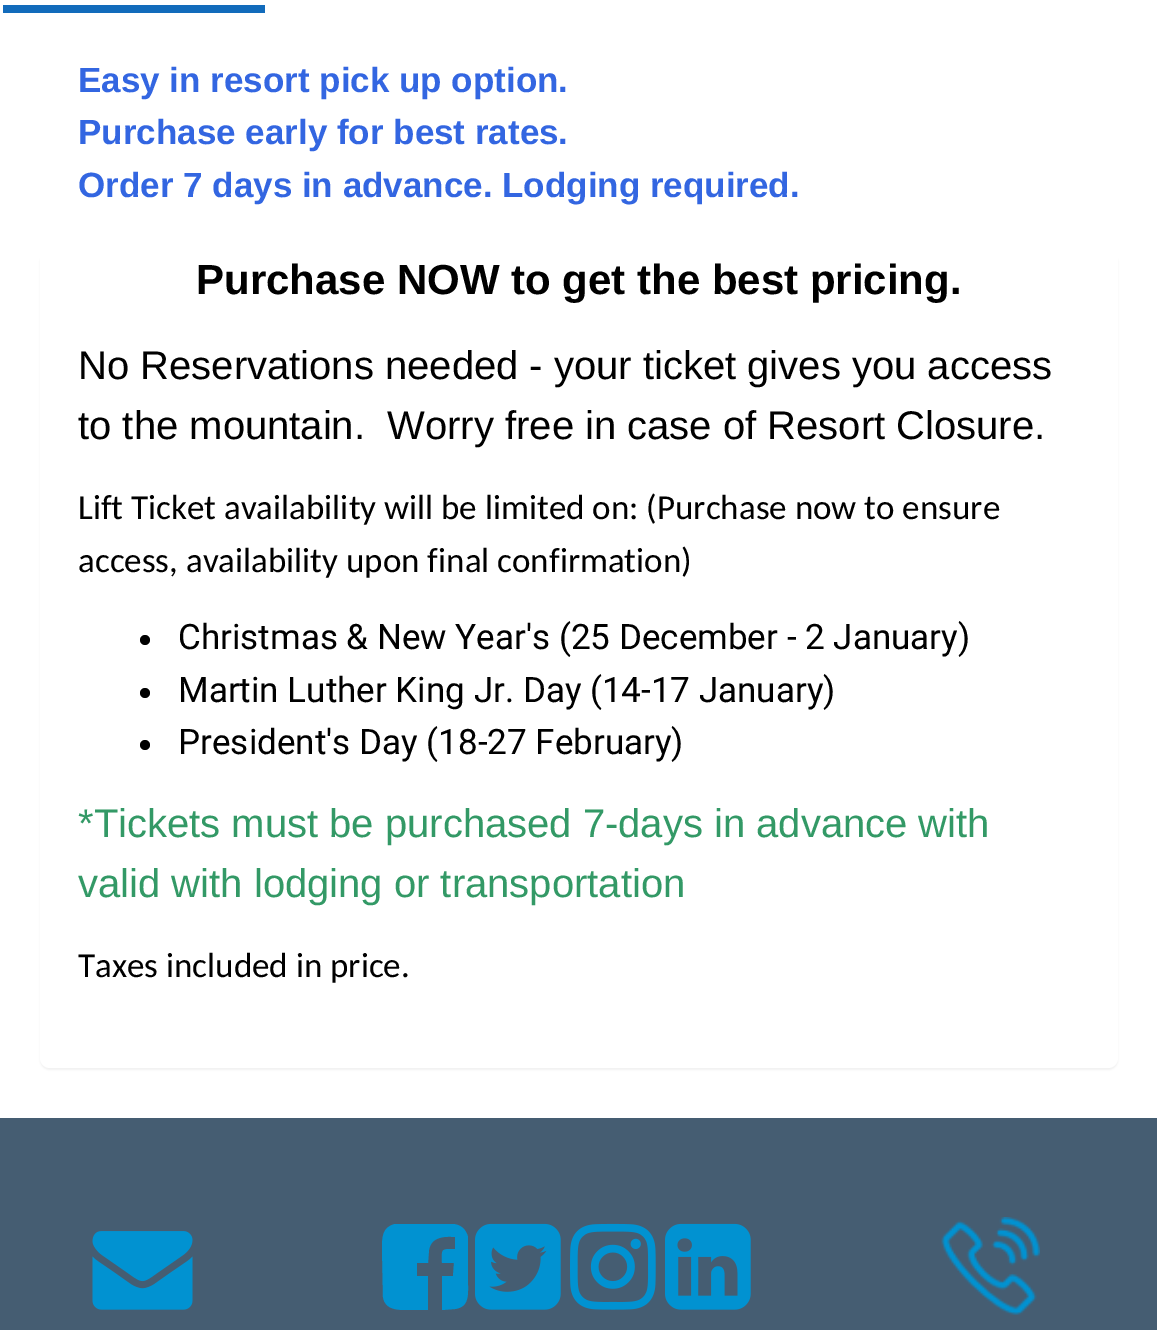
%!PS-Adobe-3.0
%%BoundingBox: 0 0 1157 1330
%%LanguageLevel: 3
%%Pages: 1
%%EndComments
%%BeginProlog
/setink { dup -16 bitshift 255 div exch dup -8 bitshift 255 and 255 div exch 255 and 255 div setrgbcolor } def
/usefont { [ exch dup neg 0 0 3 -1 roll 0 0 ] selectfont } def
/setalpha { dup .setfillconstantalpha .setstrokeconstantalpha } def
/disc { newpath 0 360 arc closepath } def
/rrect { 5 dict begin { /r /h /w /y /x } { exch def } forall
  x r add y moveto x w add y 2 copy h add r arct x w add y h add x 1 index r arct
  x y h add x y r arct x y 2 copy exch w add exch r arct closepath end } def
/softshadow { 12 dict begin { /a /b /q /h /w /y /x } { exch def } forall gsave /was 0 def
  9 -2 -9 { dup b mul 4 div /e exch def 1 sub .425 mul 2.718 exch exp 1 add a .99 .min exch div /now exch def
    1 1 now sub 1 was sub div sub setalpha /was now def
    w h .min e 2 mul add 0 gt { x e sub y e sub w e 2 mul add h e 2 mul add
      q e add b .6 mul add w h .min 2 div e add .min 0 .max rrect fill } if } for grestore end } def
/drawimage { 5 dict begin { /h /w /y /x /name } { exch def } forall
  gsave x y translate w h scale
  w h 8 [w 0 0 h 0 0] name (r) file false 3 colorimage grestore end } def
%%EndProlog
%%BeginSetup
<< /PageSize [1157 1330] /PageUsesTransparency true >> setpagedevice
%%EndSetup
%%Page: 1 1
0 .pushpdf14devicefilter
0 1330 translate 1 -1 scale
4 setmiterlimit
16#FFFFFF setink
0 0 1157 1330 rectfill
16#126BBB setink
3 5 262 8 rectfill
/LiberationSans-Bold 35 usefont
16#3366E1 setink
[
    [(Easy in resort pick up option.) 78 92]
    [(Purchase early for best rates.) 78 144]
    [(Order 7 days in advance. Lodging required.) 78 197]
] { aload pop moveto show } forall
16#000000 setink
40 253 1078 817 10 1 0.05 softshadow
16#FFFFFF setink
40 250 1078 818 10 rrect fill
/LiberationSans-Bold 42 usefont
16#000000 setink
196 294 moveto (Purchase NOW to get the best pricing.) show
/LiberationSans-Regular 40 usefont
78 379 moveto (No Reservations needed - your ticket gives you access) show
78 439 moveto (to the mountain.  Worry free in case of Resort Closure.) show
/Carlito-Regular 35 usefont
78 519 moveto (Lift Ticket availability will be limited on: \(Purchase now to ensure) show
78 572 moveto (access, availability upon final confirmation\)) show
145 640 5 disc fill
/Roboto-Regular 35 usefont
178 649 moveto (Christmas & New Year's \(25 December - 2 January\)) show
145 693 5 disc fill
178 702 moveto (Martin Luther King Jr. Day \(14-17 January\)) show
145 745 5 disc fill
178 754 moveto (President's Day \(18-27 February\)) show
/LiberationSans-Regular 40 usefont
16#339966 setink
78 837 moveto (*Tickets must be purchased 7-days in advance with) show
78 897 moveto (valid with lodging or transportation) show
/Carlito-Regular 35 usefont
16#000000 setink
78 977 moveto (Taxes included in price.) show
16#455D72 setink
0 1118 1157 212 rectfill
(img1.raw) 92 1231 101 79 drawimage
16#0192D1 setink
452 1224 moveto 460 1224 466 1229 468 1237 curveto 468 1285 lineto 468 1295 469 1307 455 1309 curveto 442 1310 lineto 442 1276 lineto 453 1276 lineto 454 1263 lineto 442 1263 lineto 442 1249 440 1249 455 1249 curveto 455 1237 lineto 444 1236 431 1237 429 1250 curveto 428 1263 lineto 417 1263 lineto 417 1276 lineto 428 1276 lineto 428 1310 lineto 408 1310 lineto 398 1310 385 1310 383 1297 curveto 382 1249 lineto 382 1238 382 1227 395 1224 curveto closepath fill
(img2.raw) 475 1223 86 87 drawimage
(img3.raw) 570 1223 86 87 drawimage
(img4.raw) 665 1223 86 87 drawimage
(img5.raw) 941 1217 99 98 drawimage
.poppdf14devicefilter showpage
%%EOF
